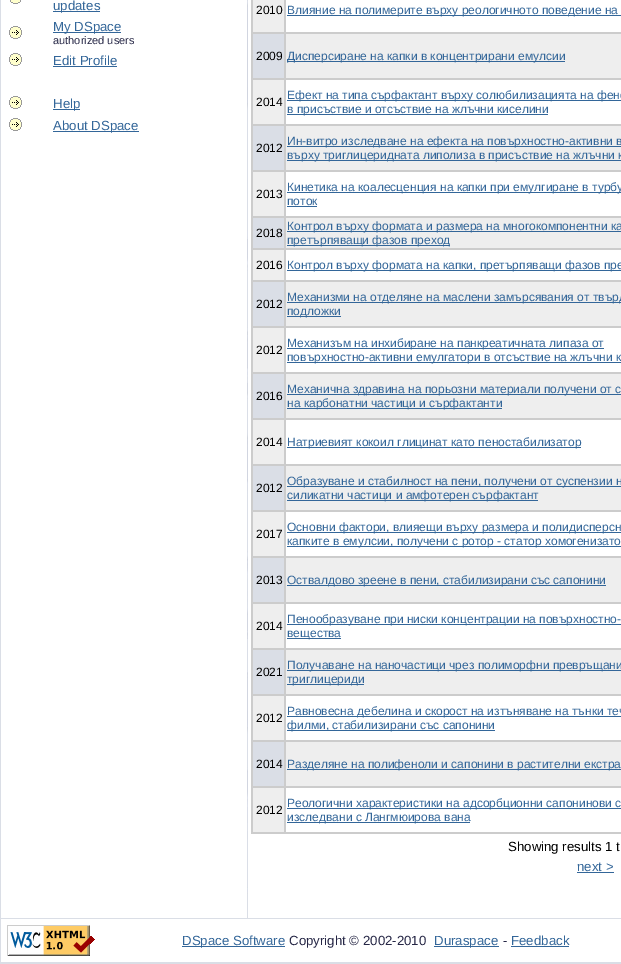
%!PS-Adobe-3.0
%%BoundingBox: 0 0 621 964
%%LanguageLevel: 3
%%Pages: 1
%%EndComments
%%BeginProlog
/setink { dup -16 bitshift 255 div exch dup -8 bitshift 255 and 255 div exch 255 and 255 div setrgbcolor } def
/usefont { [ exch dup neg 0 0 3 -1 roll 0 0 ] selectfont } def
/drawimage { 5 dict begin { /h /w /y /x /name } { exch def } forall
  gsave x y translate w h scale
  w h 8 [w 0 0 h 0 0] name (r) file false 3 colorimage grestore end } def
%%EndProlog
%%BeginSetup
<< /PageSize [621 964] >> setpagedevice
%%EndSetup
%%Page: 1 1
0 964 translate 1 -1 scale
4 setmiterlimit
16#DADEE6 setink
0 0 621 964 rectfill
(img1.raw) 247 0 1 894 drawimage
16#FFFFFF setink
1 0 246 918 rectfill
(img2.raw) 10 0 11 4 drawimage
16#336699 setink
53 11 47 1 rectfill
/LiberationSans-Regular 13.25 usefont
53 10 moveto (updates) show
(img3.raw) 9 26 13 13 drawimage
53 32 68 1 rectfill
53 31 moveto (My DSpace) show
/LiberationSans-Regular 11 usefont
16#252645 setink
53 44 moveto (authorized users) show
(img3.raw) 9 53 13 13 drawimage
/LiberationSans-Regular 13.25 usefont
16#336699 setink
53 65 moveto (Edit Profile) show
53 66 64 1 rectfill
(img3.raw) 9 96 13 13 drawimage
53 109 27 1 rectfill
53 108 moveto (Help) show
(img3.raw) 9 118 13 13 drawimage
53 131 86 1 rectfill
53 130 moveto (About DSpace) show
[
    [248 0 373 918 16#FFFFFF]
    [251 0 370 834 16#CCCCCC]
    [253 0 31 32 16#EEEEEE]
] { aload pop setink rectfill } forall
/LiberationSans-Regular 12 usefont
16#000000 setink
256 14 moveto (2010) show
16#FFFFFF setink
286 0 335 32 rectfill
16#336699 setink
287 15 334 1 rectfill
287 14 moveto (Влияние на полимерите върху реологичното поведение на) show
16#DADEE6 setink
253 34 31 44 rectfill
16#000000 setink
256 60 moveto (2009) show
16#EEEEEE setink
286 34 335 44 rectfill
16#336699 setink
287 61 278 1 rectfill
287 60 moveto (Дисперсиране на капки в концентрирани емулсии) show
16#EEEEEE setink
253 80 31 44 rectfill
16#000000 setink
256 106 moveto (2014) show
16#FFFFFF setink
286 80 335 44 rectfill
16#336699 setink
287 100 334 1 rectfill
287 99 moveto (Ефект на типа сърфактант върху солюбилизацията на фено) show
287 114 261 1 rectfill
287 113 moveto (в присъствие и отсъствие на жлъчни киселини) show
16#DADEE6 setink
253 126 31 44 rectfill
16#000000 setink
256 152 moveto (2012) show
16#EEEEEE setink
286 126 335 44 rectfill
16#336699 setink
287 146 334 1 rectfill
287 145 moveto (Ин-витро изследване на ефекта на повърхностно-активни в) show
287 160 334 1 rectfill
287 159 moveto (върху триглицеридната липолиза в присъствие на жлъчни к) show
16#EEEEEE setink
253 172 31 44 rectfill
16#000000 setink
256 198 moveto (2013) show
16#FFFFFF setink
286 172 335 44 rectfill
16#336699 setink
287 192 334 1 rectfill
287 191 moveto (Кинетика на коалесценция на капки при емулгиране в турбу) show
287 205 moveto (поток) show
287 206 30 1 rectfill
16#DADEE6 setink
253 218 31 30 rectfill
16#000000 setink
256 237 moveto (2018) show
16#EEEEEE setink
286 218 335 30 rectfill
16#336699 setink
287 231 334 1 rectfill
287 230 moveto (Контрол върху формата и размера на многокомпонентни ка) show
287 245 163 1 rectfill
287 244 moveto (претърпяващи фазов преход) show
16#EEEEEE setink
253 250 31 30 rectfill
16#000000 setink
256 269 moveto (2016) show
16#FFFFFF setink
286 250 335 30 rectfill
16#336699 setink
287 270 334 1 rectfill
287 269 moveto (Контрол върху формата на капки, претърпяващи фазов пре) show
16#DADEE6 setink
253 282 31 44 rectfill
16#000000 setink
256 308 moveto (2012) show
16#EEEEEE setink
286 282 335 44 rectfill
16#336699 setink
287 302 334 1 rectfill
287 301 moveto (Механизми на отделяне на маслени замърсявания от твърд) show
287 316 54 1 rectfill
287 315 moveto (подложки) show
16#EEEEEE setink
253 328 31 44 rectfill
16#000000 setink
256 354 moveto (2012) show
16#FFFFFF setink
286 328 335 44 rectfill
16#336699 setink
287 348 317 1 rectfill
287 347 moveto (Механизъм на инхибиране на панкреатичната липаза от) show
287 362 334 1 rectfill
287 361 moveto (повърхностно-активни емулгатори в отсъствие на жлъчни к) show
16#DADEE6 setink
253 374 31 44 rectfill
16#000000 setink
256 400 moveto (2016) show
16#EEEEEE setink
286 374 335 44 rectfill
16#336699 setink
287 394 334 1 rectfill
287 393 moveto (Механична здравина на порьозни материали получени от с) show
287 408 215 1 rectfill
287 407 moveto (на карбонатни частици и сърфактанти) show
16#EEEEEE setink
253 420 31 44 rectfill
16#000000 setink
256 446 moveto (2014) show
16#FFFFFF setink
286 420 335 44 rectfill
16#336699 setink
287 447 294 1 rectfill
287 446 moveto (Натриевият кокоил глицинат като пеностабилизатор) show
16#DADEE6 setink
253 466 31 44 rectfill
16#000000 setink
256 492 moveto (2012) show
16#EEEEEE setink
286 466 335 44 rectfill
16#336699 setink
287 486 334 1 rectfill
287 485 moveto (Образуване и стабилност на пени, получени от суспензии н) show
287 500 251 1 rectfill
287 499 moveto (силикатни частици и амфотерен сърфактант) show
16#EEEEEE setink
253 512 31 44 rectfill
16#000000 setink
256 538 moveto (2017) show
16#FFFFFF setink
286 512 335 44 rectfill
16#336699 setink
287 532 334 1 rectfill
287 531 moveto (Основни фактори, влияещи върху размера и полидисперсн) show
287 546 334 1 rectfill
287 545 moveto (капките в емулсии, получени с ротор - статор хомогенизато) show
16#DADEE6 setink
253 558 31 44 rectfill
16#000000 setink
256 584 moveto (2013) show
16#EEEEEE setink
286 558 335 44 rectfill
16#336699 setink
287 585 319 1 rectfill
287 584 moveto (Оствалдово зреене в пени, стабилизирани със сапонини) show
16#EEEEEE setink
253 604 31 44 rectfill
16#000000 setink
256 630 moveto (2014) show
16#FFFFFF setink
286 604 335 44 rectfill
16#336699 setink
287 624 334 1 rectfill
287 623 moveto (Пенообразуване при ниски концентрации на повърхностно-) show
287 638 54 1 rectfill
287 637 moveto (вещества) show
16#DADEE6 setink
253 650 31 44 rectfill
16#000000 setink
256 676 moveto (2021) show
16#EEEEEE setink
286 650 335 44 rectfill
16#336699 setink
287 670 334 1 rectfill
287 669 moveto (Получаване на наночастици чрез полиморфни превръщани) show
287 684 77 1 rectfill
287 683 moveto (триглицериди) show
16#EEEEEE setink
253 696 31 44 rectfill
16#000000 setink
256 722 moveto (2012) show
16#FFFFFF setink
286 696 335 44 rectfill
16#336699 setink
287 716 334 1 rectfill
287 715 moveto (Равновесна дебелина и скорост на изтъняване на тънки теч) show
287 730 208 1 rectfill
287 729 moveto (филми, стабилизирани със сапонини) show
16#DADEE6 setink
253 742 31 44 rectfill
16#000000 setink
256 768 moveto (2014) show
16#EEEEEE setink
286 742 335 44 rectfill
16#336699 setink
287 769 334 1 rectfill
287 768 moveto (Разделяне на полифеноли и сапонини в растителни екстра) show
16#EEEEEE setink
253 788 31 44 rectfill
16#000000 setink
256 814 moveto (2012) show
16#FFFFFF setink
286 788 335 44 rectfill
16#336699 setink
287 808 334 1 rectfill
287 807 moveto (Реологични характеристики на адсорбционни сапонинови с) show
287 822 183 1 rectfill
287 821 moveto (изследвани с Лангмюирова вана) show
/LiberationSans-Regular 13.25 usefont
16#000000 setink
508 851 moveto (Showing results 1 t) show
16#336699 setink
577 871 moveto (next >) show
577 872 37 1 rectfill
16#FFFFFF setink
1 919 620 43 rectfill
(img4.raw) 7 925 88 31 drawimage
16#336699 setink
182 946 103 1 rectfill
182 945 moveto (DSpace Software) show
16#252645 setink
289 945 moveto (Copyright © 2002-2010) show
16#336699 setink
434 946 65 1 rectfill
434 945 moveto (Duraspace) show
16#252645 setink
503 945 moveto (-) show
16#336699 setink
511 945 moveto (Feedback) show
511 946 58 1 rectfill
showpage
%%EOF
